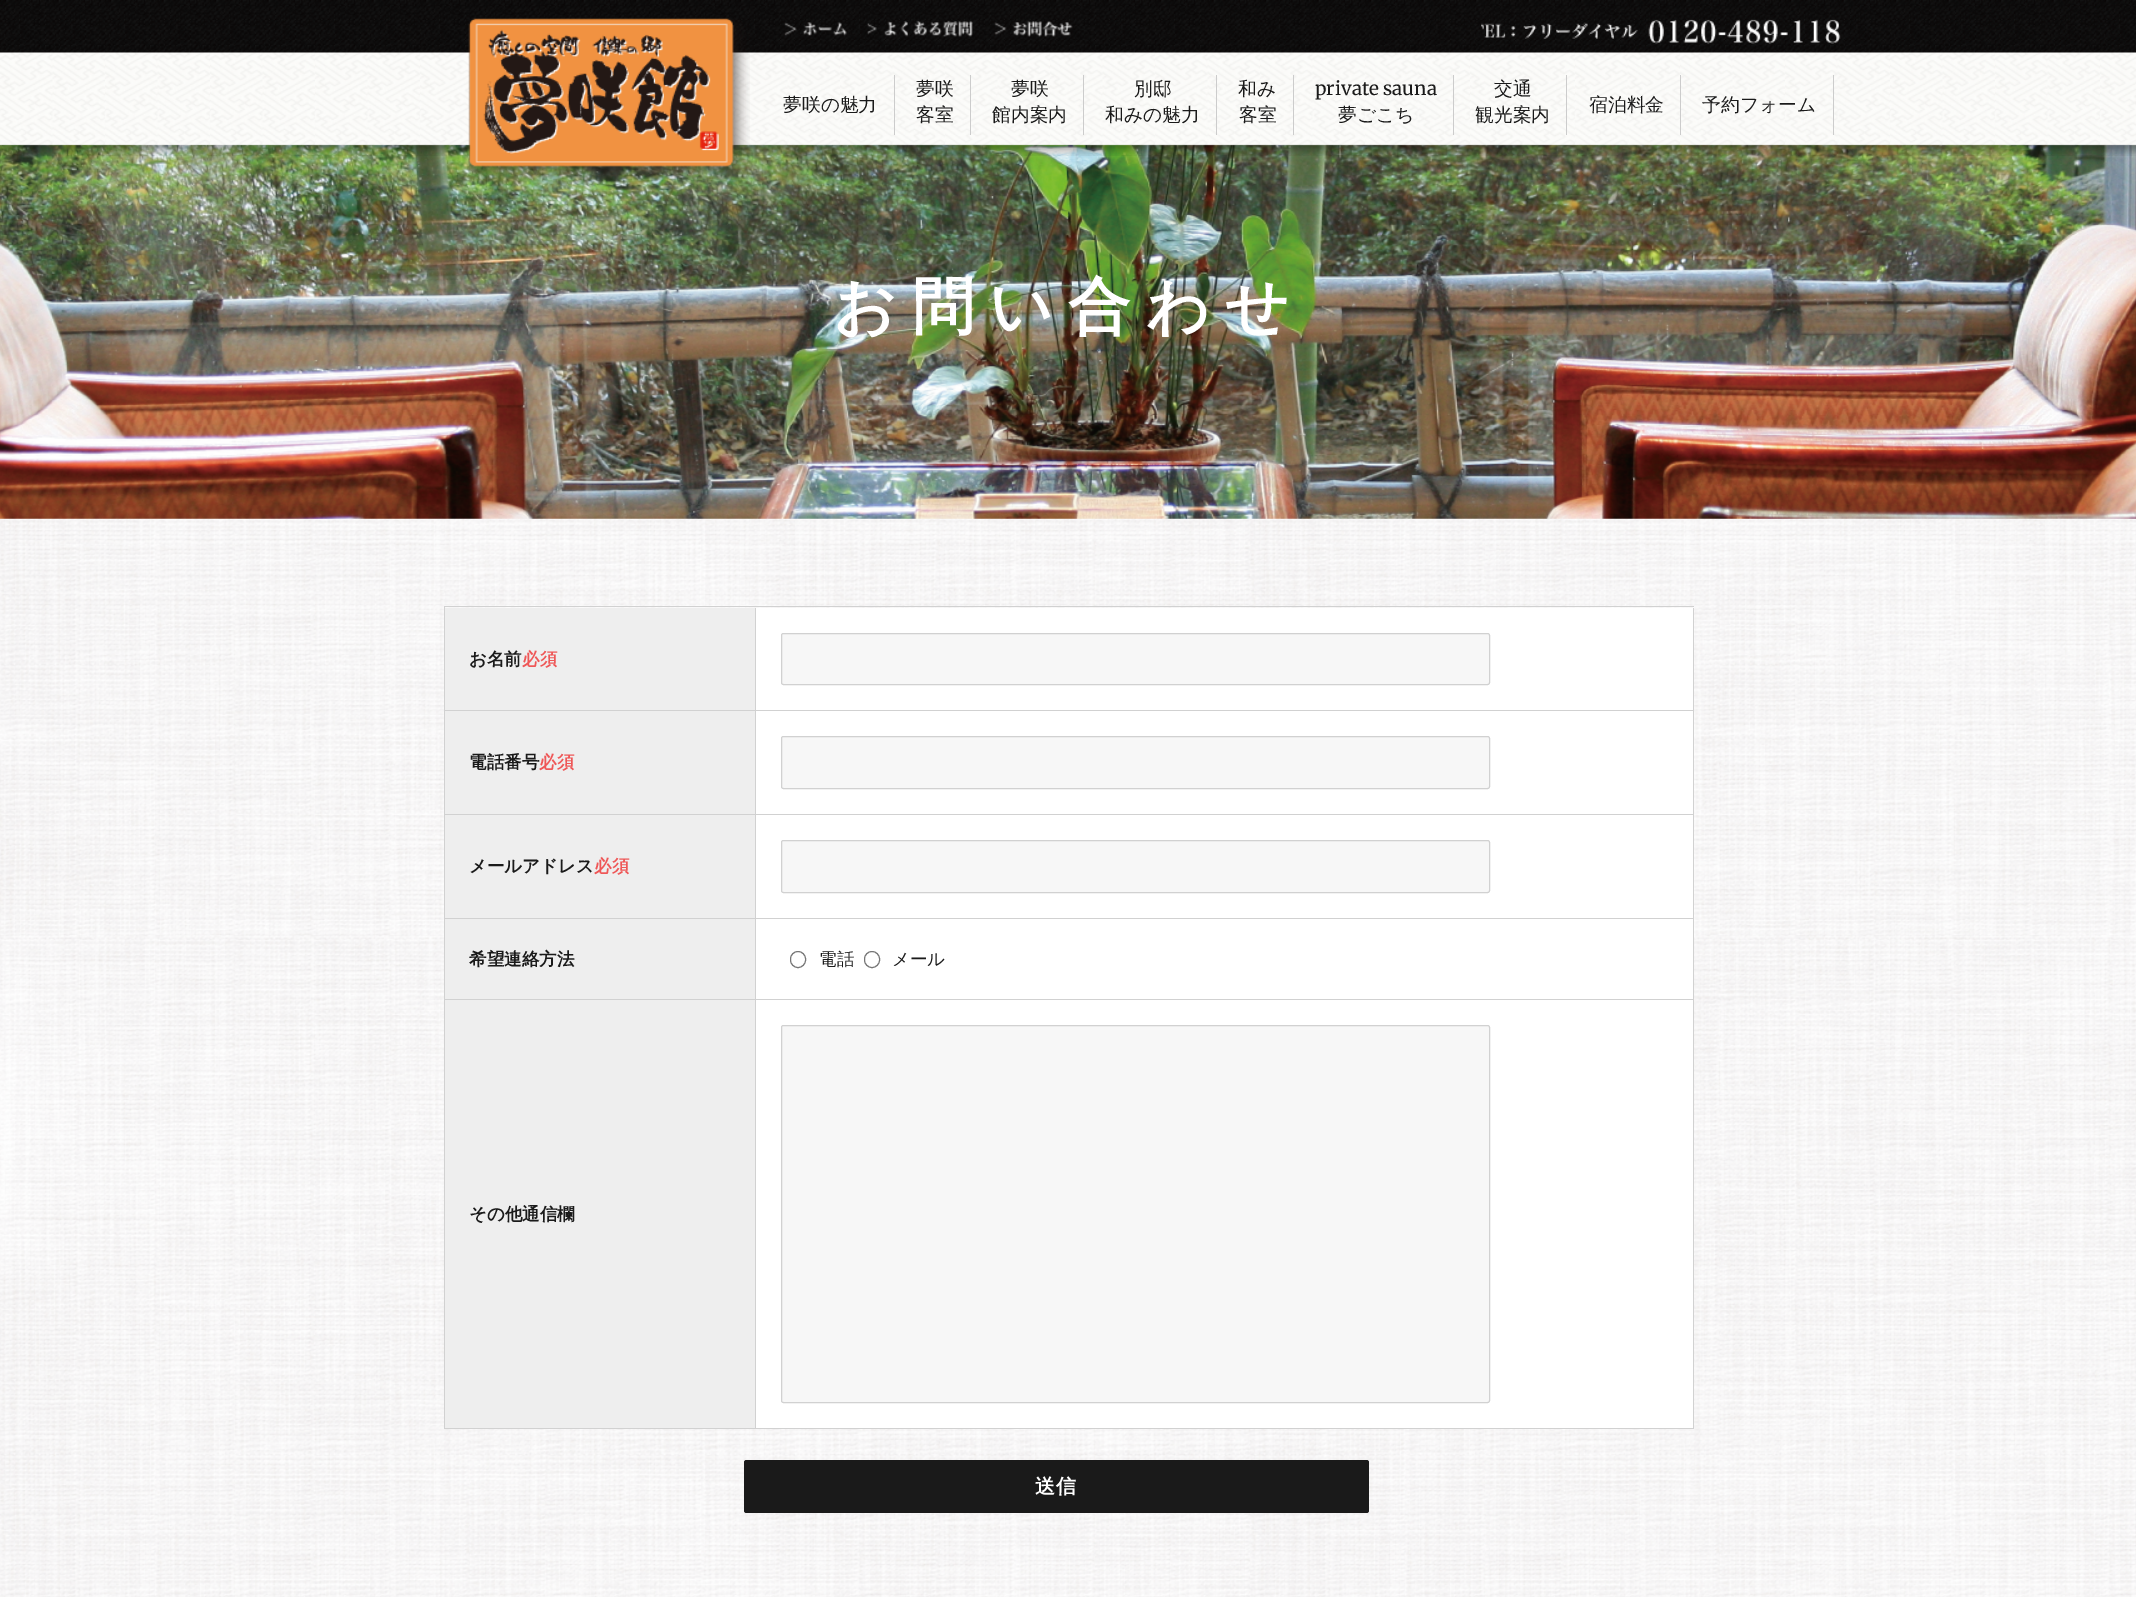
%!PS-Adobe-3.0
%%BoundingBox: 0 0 2136 1597
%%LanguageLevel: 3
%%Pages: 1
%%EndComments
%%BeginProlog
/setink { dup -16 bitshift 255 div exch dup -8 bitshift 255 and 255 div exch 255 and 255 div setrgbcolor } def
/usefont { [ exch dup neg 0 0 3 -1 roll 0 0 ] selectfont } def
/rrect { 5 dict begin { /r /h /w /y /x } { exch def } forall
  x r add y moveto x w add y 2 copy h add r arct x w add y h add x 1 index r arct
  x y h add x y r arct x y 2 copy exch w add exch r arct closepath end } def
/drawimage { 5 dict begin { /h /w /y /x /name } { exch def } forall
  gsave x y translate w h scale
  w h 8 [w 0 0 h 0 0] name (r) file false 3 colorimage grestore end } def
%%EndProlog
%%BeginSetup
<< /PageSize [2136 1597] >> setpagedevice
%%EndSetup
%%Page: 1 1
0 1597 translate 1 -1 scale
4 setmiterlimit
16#FFFFFF setink
0 0 2136 1597 rectfill
(img1.raw) 0 518 2136 1079 drawimage
(img8.raw) 0 144 2136 375 drawimage
(img2.raw) 0 0 2136 156 drawimage
(img3.raw) 468 18 282 164 drawimage
(img4.raw) 784 22 63 14 drawimage
(img5.raw) 867 21 106 16 drawimage
(img6.raw) 994 21 79 16 drawimage
(img7.raw) 1481 19 360 25 drawimage
16#CCCCCC setink
894 75 1 60 rectfill
/WenQuanYiZenHei-Medium 18.75 usefont
16#1A1A1A setink
783 111 moveto (夢咲の魅力) show
16#CCCCCC setink
970 75 1 60 rectfill
16#1A1A1A setink
916 95 moveto (夢咲) show
916 121 moveto (客室) show
16#CCCCCC setink
1083 75 1 60 rectfill
16#1A1A1A setink
1011 95 moveto (夢咲) show
992 121 moveto (館内案内) show
16#CCCCCC setink
1216 75 1 60 rectfill
16#1A1A1A setink
1134 95 moveto (別邸) show
1105 121 moveto (和みの魅力) show
16#CCCCCC setink
1293 75 1 60 rectfill
16#1A1A1A setink
1238 95 moveto (和み) show
1239 121 moveto (客室) show
16#CCCCCC setink
1453 75 1 60 rectfill
/Merriweather-Regular 18.75 usefont
16#1A1A1A setink
1315 95 moveto (private sauna) show
/WenQuanYiZenHei-Medium 18.75 usefont
1338 121 moveto (夢ごこち) show
16#CCCCCC setink
1566 75 1 60 rectfill
16#1A1A1A setink
1494 95 moveto (交通) show
1475 121 moveto (観光案内) show
16#CCCCCC setink
1680 75 1 60 rectfill
16#1A1A1A setink
1589 111 moveto (宿泊料金) show
16#CCCCCC setink
1833 75 1 60 rectfill
16#1A1A1A setink
1702 111 moveto (予約フォーム) show
/WenQuanYiZenHei-Bold 62.5 usefont
16#FFFFFF setink
833 328 moveto 15 0 (お問い合わせ) ashow
[
    [444 606 1250 1 16#D1D1D1]
    [444 606 1 823 16#D1D1D1]
    [445 608 310 102 16#EEEEEE]
    [755 608 1 821 16#D1D1D1]
    [445 710 311 1 16#D1D1D1]
] { aload pop setink rectfill } forall
/WenQuanYiZenHei-Bold 17.5 usefont
16#1A1A1A setink
469 665 moveto (お名前) show
16#EF5757 setink
522 665 moveto (必須) show
[
    [756 608 937 102 16#FFFFFF]
    [1693 608 1 821 16#D1D1D1]
    [756 710 938 1 16#D1D1D1]
] { aload pop setink rectfill } forall
16#F7F7F7 setink
781.5 633.5 708 51 2 rrect gsave fill grestore
16#D1D1D1 setink
stroke
16#EEEEEE setink
445 711 310 103 rectfill
16#D1D1D1 setink
445 814 1249 1 rectfill
16#1A1A1A setink
469 768 moveto (電話番号) show
16#EF5757 setink
539 768 moveto (必須) show
16#FFFFFF setink
756 711 937 103 rectfill
16#F7F7F7 setink
781.5 736.5 708 52 2 rrect gsave fill grestore
16#D1D1D1 setink
stroke
16#EEEEEE setink
445 815 310 103 rectfill
16#D1D1D1 setink
445 918 1249 1 rectfill
16#1A1A1A setink
469 872 moveto (メールアドレス) show
16#EF5757 setink
594 872 moveto (必須) show
16#FFFFFF setink
756 815 937 103 rectfill
16#F7F7F7 setink
781.5 840.5 708 52 2 rrect gsave fill grestore
16#D1D1D1 setink
stroke
16#EEEEEE setink
445 919 310 80 rectfill
16#D1D1D1 setink
445 999 1249 1 rectfill
16#1A1A1A setink
469 965 moveto (希望連絡方法) show
16#FFFFFF setink
756 919 937 80 rectfill
16#767676 setink
790.5 951.5 15 16 7.5 rrect stroke
/WenQuanYiZenHei-Medium 17.5 usefont
16#1A1A1A setink
819 965 moveto (電話) show
16#767676 setink
864.5 951.5 15 16 7.5 rrect stroke
16#1A1A1A setink
892 965 moveto (メール) show
16#EEEEEE setink
445 1000 310 428 rectfill
16#D1D1D1 setink
445 1428 1249 1 rectfill
/WenQuanYiZenHei-Bold 17.5 usefont
16#1A1A1A setink
469 1220 moveto (その他通信欄) show
16#FFFFFF setink
756 1000 937 428 rectfill
16#F7F7F7 setink
781.5 1025.5 708 377 2 rrect gsave fill grestore
16#D1D1D1 setink
stroke
16#1A1A1A setink
744 1460 625 53 2.5 rrect fill
/WenQuanYiZenHei-Bold 20 usefont
16#FFFFFF setink
1035 1493 moveto 1 0 (送信) ashow
showpage
%%EOF
